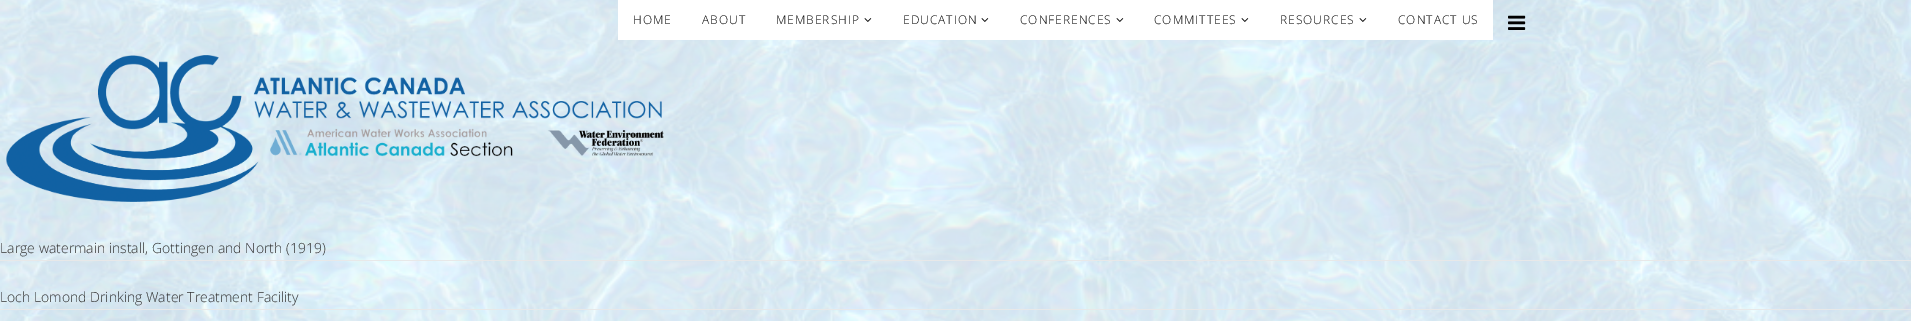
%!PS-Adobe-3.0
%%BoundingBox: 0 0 1911 321
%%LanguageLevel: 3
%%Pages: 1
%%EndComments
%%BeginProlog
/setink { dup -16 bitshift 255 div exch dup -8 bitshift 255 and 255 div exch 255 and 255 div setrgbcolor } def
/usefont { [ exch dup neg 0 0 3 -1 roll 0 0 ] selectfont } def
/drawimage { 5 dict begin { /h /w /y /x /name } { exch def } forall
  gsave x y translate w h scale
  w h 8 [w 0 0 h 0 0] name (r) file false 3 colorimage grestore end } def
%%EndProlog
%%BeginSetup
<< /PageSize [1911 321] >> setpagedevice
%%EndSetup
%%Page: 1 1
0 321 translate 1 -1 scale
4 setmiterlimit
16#FFFFFF setink
0 0 1911 321 rectfill
(img1.raw) 0 0 1911 321 drawimage
618 0 875 40 rectfill
/OpenSans-Light 12 usefont
16#000000 setink
633 24 moveto 1 0 (HOME) ashow
702 24 moveto 1 0 (ABOUT) ashow
776 24 moveto 1 0 (MEMBERSHIP) ashow
(img2.raw) 864 18 8 4 drawimage
903 24 moveto 1 0 (EDUCATION) ashow
(img2.raw) 981 18 8 4 drawimage
1020 24 moveto 1 0 (CONFERENCES) ashow
(img2.raw) 1116 18 8 4 drawimage
1154 24 moveto 1 0 (COMMITTEES) ashow
(img2.raw) 1241 18 8 4 drawimage
1280 24 moveto 1 0 (RESOURCES) ashow
(img2.raw) 1359 18 8 4 drawimage
1398 24 moveto 1 0 (CONTACT US) ashow
(img3.raw) 1508 15 18 15 drawimage
(img4.raw) 6 55 658 147 drawimage
16#E8E8E8 setink
0 260 1911 1 rectfill
/OpenSans-Light 14 usefont
16#333333 setink
0 253 moveto (Large watermain install, Gottingen and North \(1919\)) show
16#E8E8E8 setink
0 309 1911 1 rectfill
16#333333 setink
0 302 moveto (Loch Lomond Drinking Water Treatment Facility) show
showpage
%%EOF
